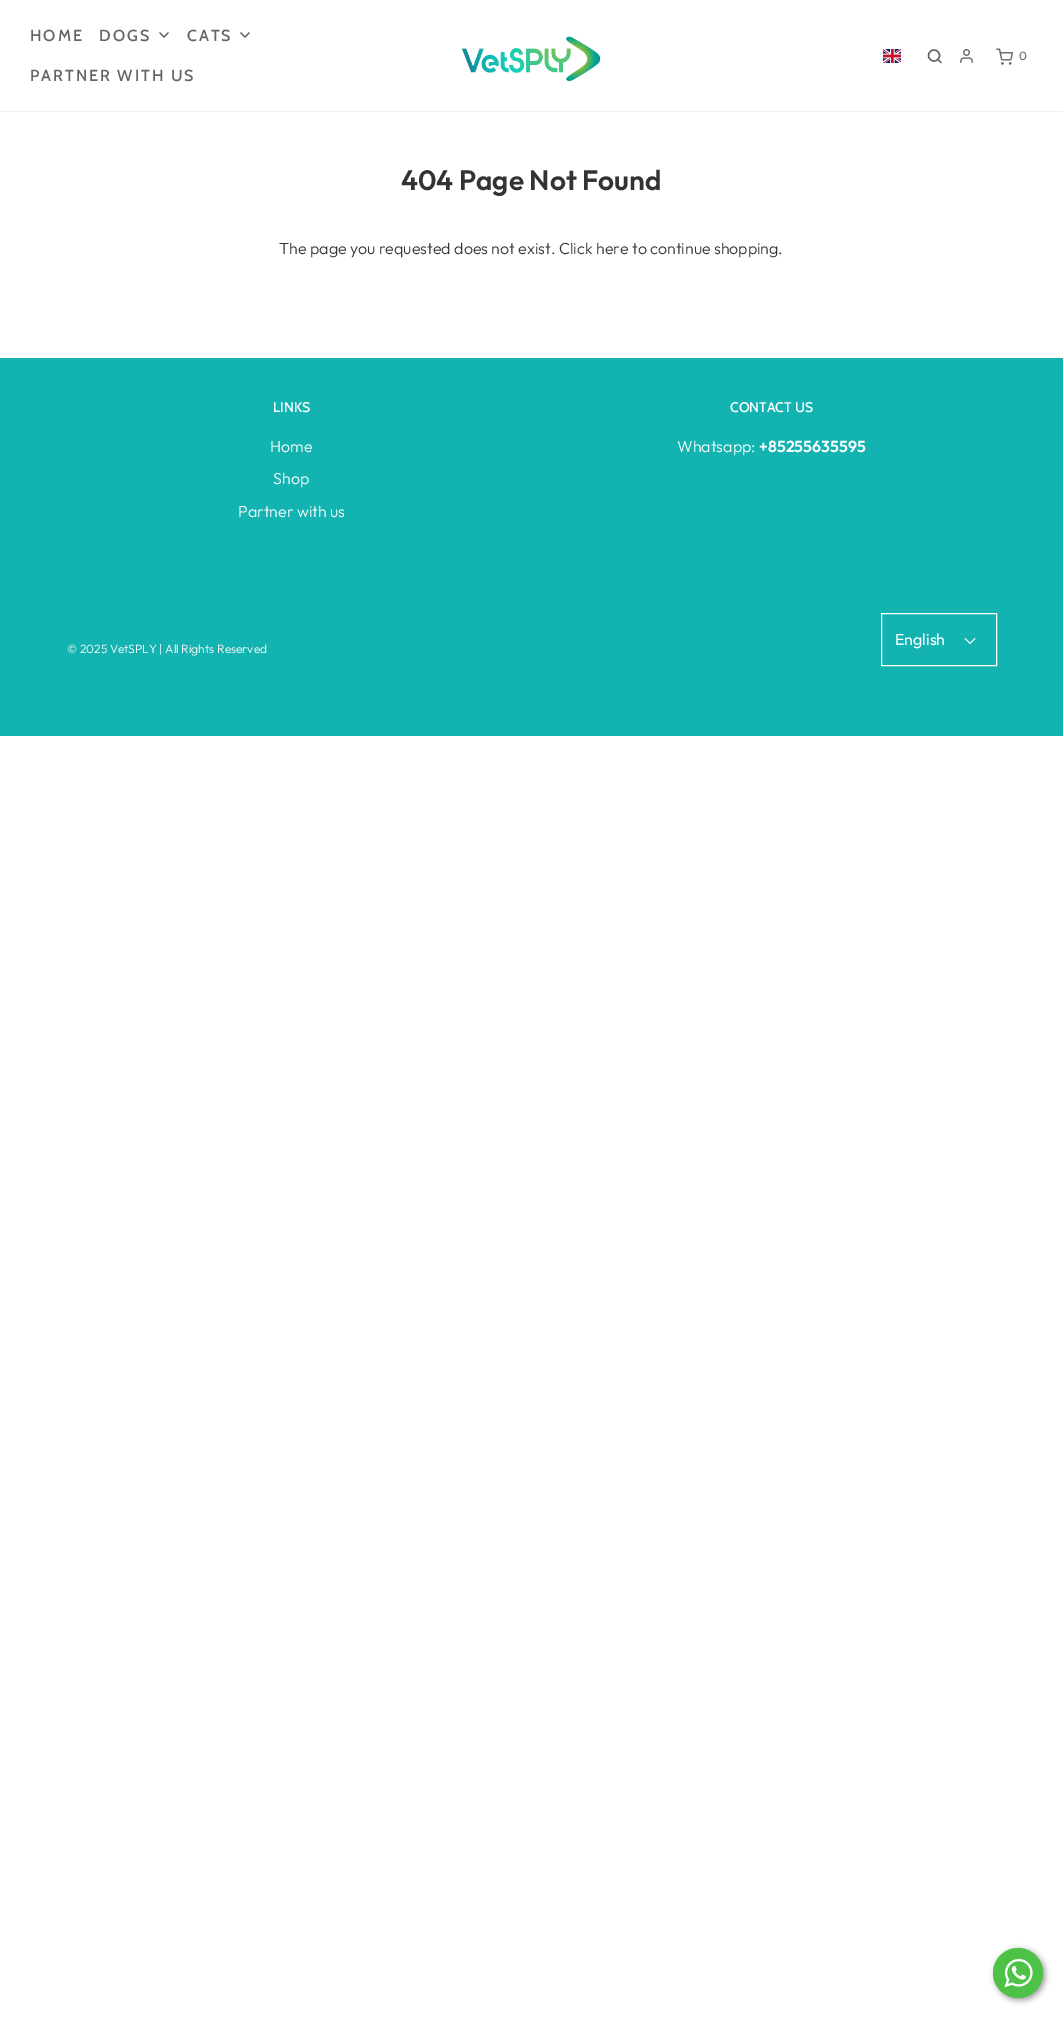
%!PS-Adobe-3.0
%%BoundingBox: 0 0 1063 2018
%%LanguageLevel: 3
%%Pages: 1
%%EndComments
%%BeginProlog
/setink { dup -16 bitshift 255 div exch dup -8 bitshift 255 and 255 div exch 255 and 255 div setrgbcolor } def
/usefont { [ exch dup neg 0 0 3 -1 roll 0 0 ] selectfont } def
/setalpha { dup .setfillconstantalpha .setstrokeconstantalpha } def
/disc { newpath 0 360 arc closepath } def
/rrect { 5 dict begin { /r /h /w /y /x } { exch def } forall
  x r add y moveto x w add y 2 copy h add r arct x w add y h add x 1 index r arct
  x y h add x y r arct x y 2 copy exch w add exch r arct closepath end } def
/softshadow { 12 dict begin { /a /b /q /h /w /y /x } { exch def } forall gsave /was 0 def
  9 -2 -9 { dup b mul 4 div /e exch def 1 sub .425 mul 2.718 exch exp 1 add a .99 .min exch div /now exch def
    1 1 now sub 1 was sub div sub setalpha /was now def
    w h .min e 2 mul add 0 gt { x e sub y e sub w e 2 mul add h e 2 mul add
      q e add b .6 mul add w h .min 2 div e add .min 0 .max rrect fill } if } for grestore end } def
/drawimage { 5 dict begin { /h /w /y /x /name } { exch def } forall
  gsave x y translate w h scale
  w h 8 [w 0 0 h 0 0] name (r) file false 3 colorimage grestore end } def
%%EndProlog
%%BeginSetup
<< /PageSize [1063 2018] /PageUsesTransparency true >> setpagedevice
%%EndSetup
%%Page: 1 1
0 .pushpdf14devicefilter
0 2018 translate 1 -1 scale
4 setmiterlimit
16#FFFFFF setink
0 0 1063 2018 rectfill
16#F0F0F0 setink
0 111 1063 1 rectfill
/Cabin-Medium 16 usefont
16#656565 setink
30 41 moveto 2 0 (HOME) ashow
99 41 moveto 2 0 (DOGS) ashow
1.3 setlinewidth
1 setlinecap
1 setlinejoin
160 33 moveto 164 37 lineto 168 33 lineto stroke
187 41 moveto 2 0 (CATS) ashow
241 33 moveto 245 37 lineto 249 33 lineto stroke
30 81 moveto 2 0 (PARTNER WITH US) ashow
(img1.raw) 461 36 140 46 drawimage
(img2.raw) 883 49 18 14 drawimage
1.4 setlinewidth
0 setlinecap
0 setlinejoin
934 55.5 5.5 disc stroke
1 setlinecap
1 setlinejoin
941 62.5 moveto 938 59.5 lineto stroke
(img3.raw) 960 49 13 14 drawimage
(img4.raw) 996 48 17 17 drawimage
/Outfit-Regular 12 usefont
1019 60 moveto (0) show
/Outfit-SemiBold 28 usefont
16#333333 setink
401 190 moveto (404 Page Not Found) show
/Outfit-Light 16 usefont
279 254 moveto (The page you requested does not exist. Click here to continue shopping.) show
16#13B3B1 setink
0 358 1063 378 rectfill
/Cabin-Medium 14 usefont
16#FFFFFF setink
273 412 moveto (LINKS) show
/Outfit-Light 16 usefont
[
    [(Home) 270 452]
    [(Shop) 273 484]
    [(Partner with us) 238 517]
] { aload pop moveto show } forall
/Cabin-Medium 14 usefont
730 412 moveto (CONTACT US) show
/Outfit-Light 16 usefont
677 452 moveto (Whatsapp:) show
/Outfit-SemiBold 16 usefont
759 452 moveto (+85255635595) show
/Outfit-Light 12 usefont
67 653 moveto (© 2025 VetSPLY | All Rights Reserved) show
1 setlinewidth
0 setlinecap
0 setlinejoin
881.5 613.5 115 52 rectstroke
/Outfit-Regular 16 usefont
895 645 moveto (English) show
(img5.raw) 964 638 12 6 drawimage
16#000000 setink
995 1950 50 50 25 3 0.4 softshadow
16#4DC247 setink
1018 1973 25 disc fill
(img6.raw) 1004 1958 29 30 drawimage
.poppdf14devicefilter showpage
%%EOF
